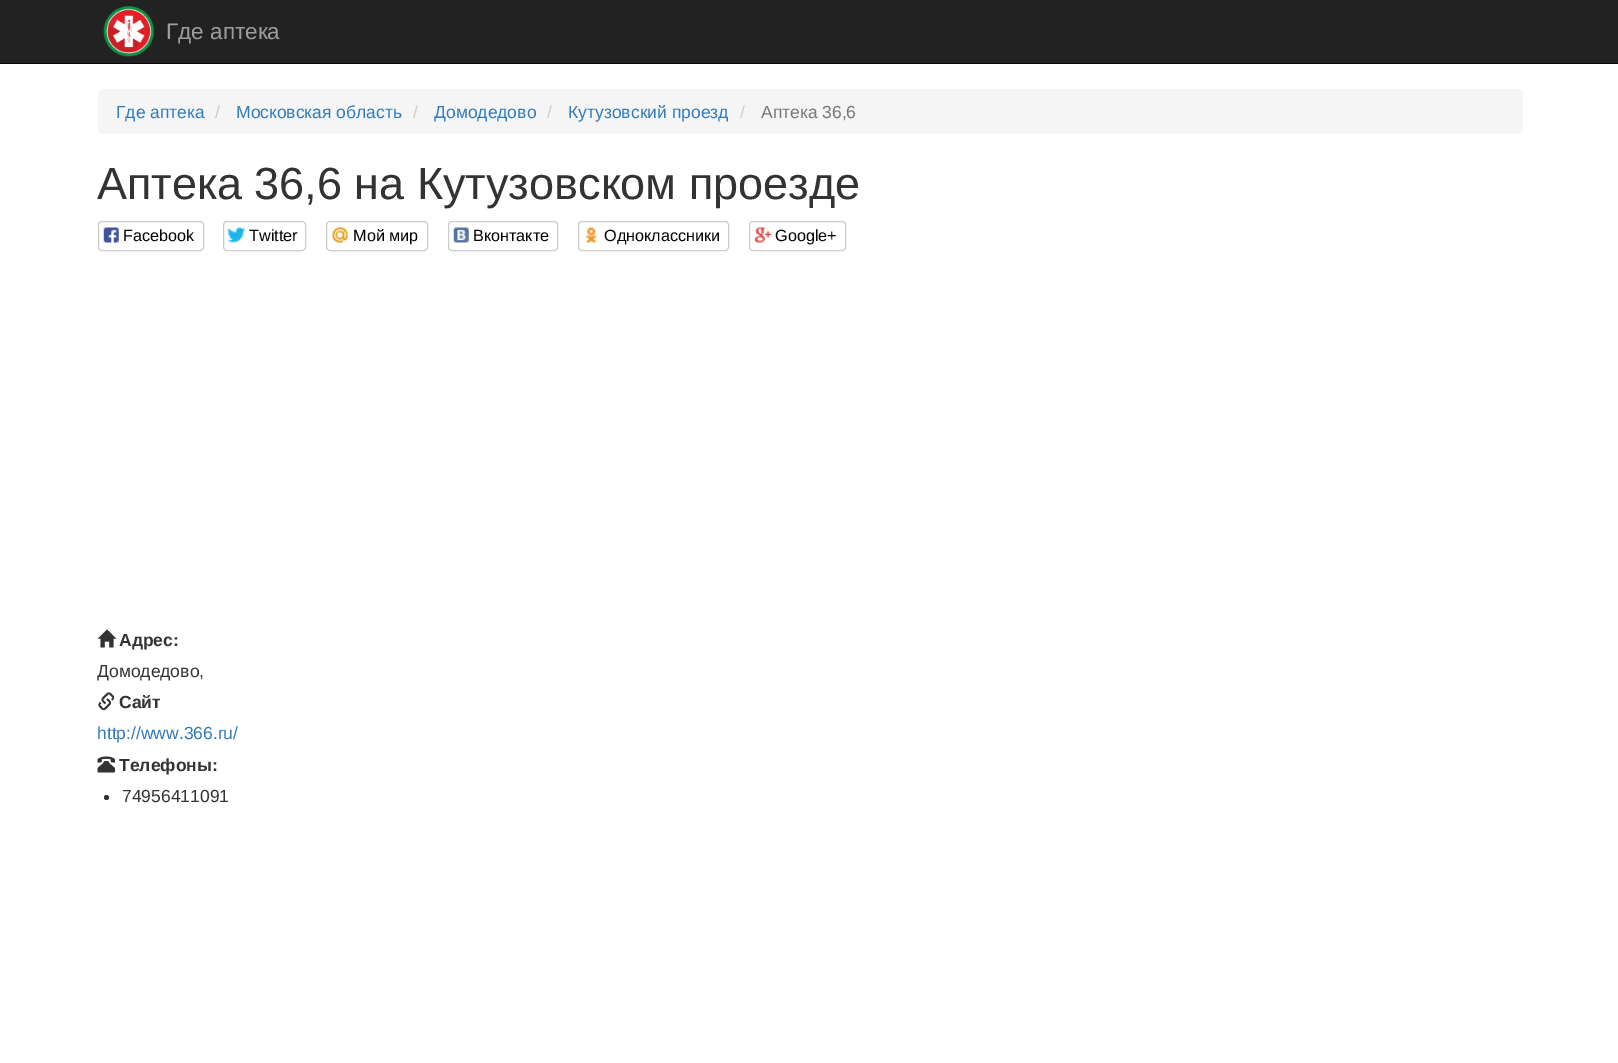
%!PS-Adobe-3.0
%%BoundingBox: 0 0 1618 1063
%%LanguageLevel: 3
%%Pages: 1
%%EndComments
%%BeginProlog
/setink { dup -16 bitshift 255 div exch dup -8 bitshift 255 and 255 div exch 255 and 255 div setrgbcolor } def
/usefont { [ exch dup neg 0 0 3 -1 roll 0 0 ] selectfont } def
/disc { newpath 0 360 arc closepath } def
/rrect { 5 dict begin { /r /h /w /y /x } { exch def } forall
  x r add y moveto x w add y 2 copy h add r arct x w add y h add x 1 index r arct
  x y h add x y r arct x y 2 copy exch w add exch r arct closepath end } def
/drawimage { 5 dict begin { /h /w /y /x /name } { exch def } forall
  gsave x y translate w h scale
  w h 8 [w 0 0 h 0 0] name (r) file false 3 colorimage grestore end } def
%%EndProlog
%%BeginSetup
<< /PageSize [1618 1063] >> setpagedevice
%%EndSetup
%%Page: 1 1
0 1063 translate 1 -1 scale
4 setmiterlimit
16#FFFFFF setink
0 0 1618 1063 rectfill
16#222222 setink
0 0 1618 63 rectfill
16#080808 setink
0 63 1618 1 rectfill
(img1.raw) 103 6 51 51 drawimage
/LiberationSans-Regular 22.5 usefont
16#9D9D9D setink
166 39 moveto (Где аптека) show
16#F5F5F5 setink
98 89 1425 45 5 rrect fill
/LiberationSans-Regular 17.5 usefont
16#337AB7 setink
116 118 moveto (Где аптека) show
16#CCCCCC setink
215 118 moveto (/) show
16#337AB7 setink
236 118 moveto (Московская область) show
16#CCCCCC setink
413 118 moveto (/) show
16#337AB7 setink
434 118 moveto (Домодедово) show
16#CCCCCC setink
547 118 moveto (/) show
16#337AB7 setink
568 118 moveto (Кутузовский проезд) show
16#CCCCCC setink
740 118 moveto (/) show
16#777777 setink
761 118 moveto (Аптека 36,6) show
/LiberationSans-Regular 45 usefont
16#333333 setink
97 199 moveto (Аптека 36,6 на Кутузовском проезде) show
16#CCCCCC setink
98.5 221.5 105 29 3.5 rrect stroke
(img2.raw) 103 227 16 16 drawimage
/LiberationSans-Regular 16.25 usefont
16#000000 setink
123 241 moveto (Facebook) show
16#CCCCCC setink
223.5 221.5 82 29 3.5 rrect stroke
(img3.raw) 227 227 18 16 drawimage
16#000000 setink
249 241 moveto (Twitter) show
16#CCCCCC setink
326.5 221.5 101 29 3.5 rrect stroke
(img4.raw) 332 227 16 16 drawimage
16#000000 setink
353 241 moveto (Мой мир) show
16#CCCCCC setink
448.5 221.5 109 29 3.5 rrect stroke
(img5.raw) 453 227 16 16 drawimage
16#000000 setink
473 241 moveto (Вконтакте) show
16#CCCCCC setink
578.5 221.5 150 29 3.5 rrect stroke
(img6.raw) 586 227 11 16 drawimage
16#000000 setink
604 241 moveto (Одноклассники) show
16#CCCCCC setink
749.5 221.5 96 29 3.5 rrect stroke
(img7.raw) 755 227 17 16 drawimage
16#000000 setink
775 241 moveto (Google+) show
(img8.raw) 97 629 20 19 drawimage
/LiberationSans-Bold 17.5 usefont
16#333333 setink
119 646 moveto (Адрес:) show
/LiberationSans-Regular 17.5 usefont
97 677 moveto (Домодедово,) show
(img9.raw) 98 692 17 19 drawimage
/LiberationSans-Bold 17.5 usefont
119 708 moveto (Сайт) show
/LiberationSans-Regular 17.5 usefont
16#337AB7 setink
97 739 moveto (http://www.366.ru/) show
(img10.raw) 97 756 18 17 drawimage
/LiberationSans-Bold 17.5 usefont
16#333333 setink
119 771 moveto (Телефоны:) show
106.5 797.5 2.5 disc fill
/LiberationSans-Regular 17.5 usefont
122 802 moveto (74956411091) show
showpage
%%EOF
